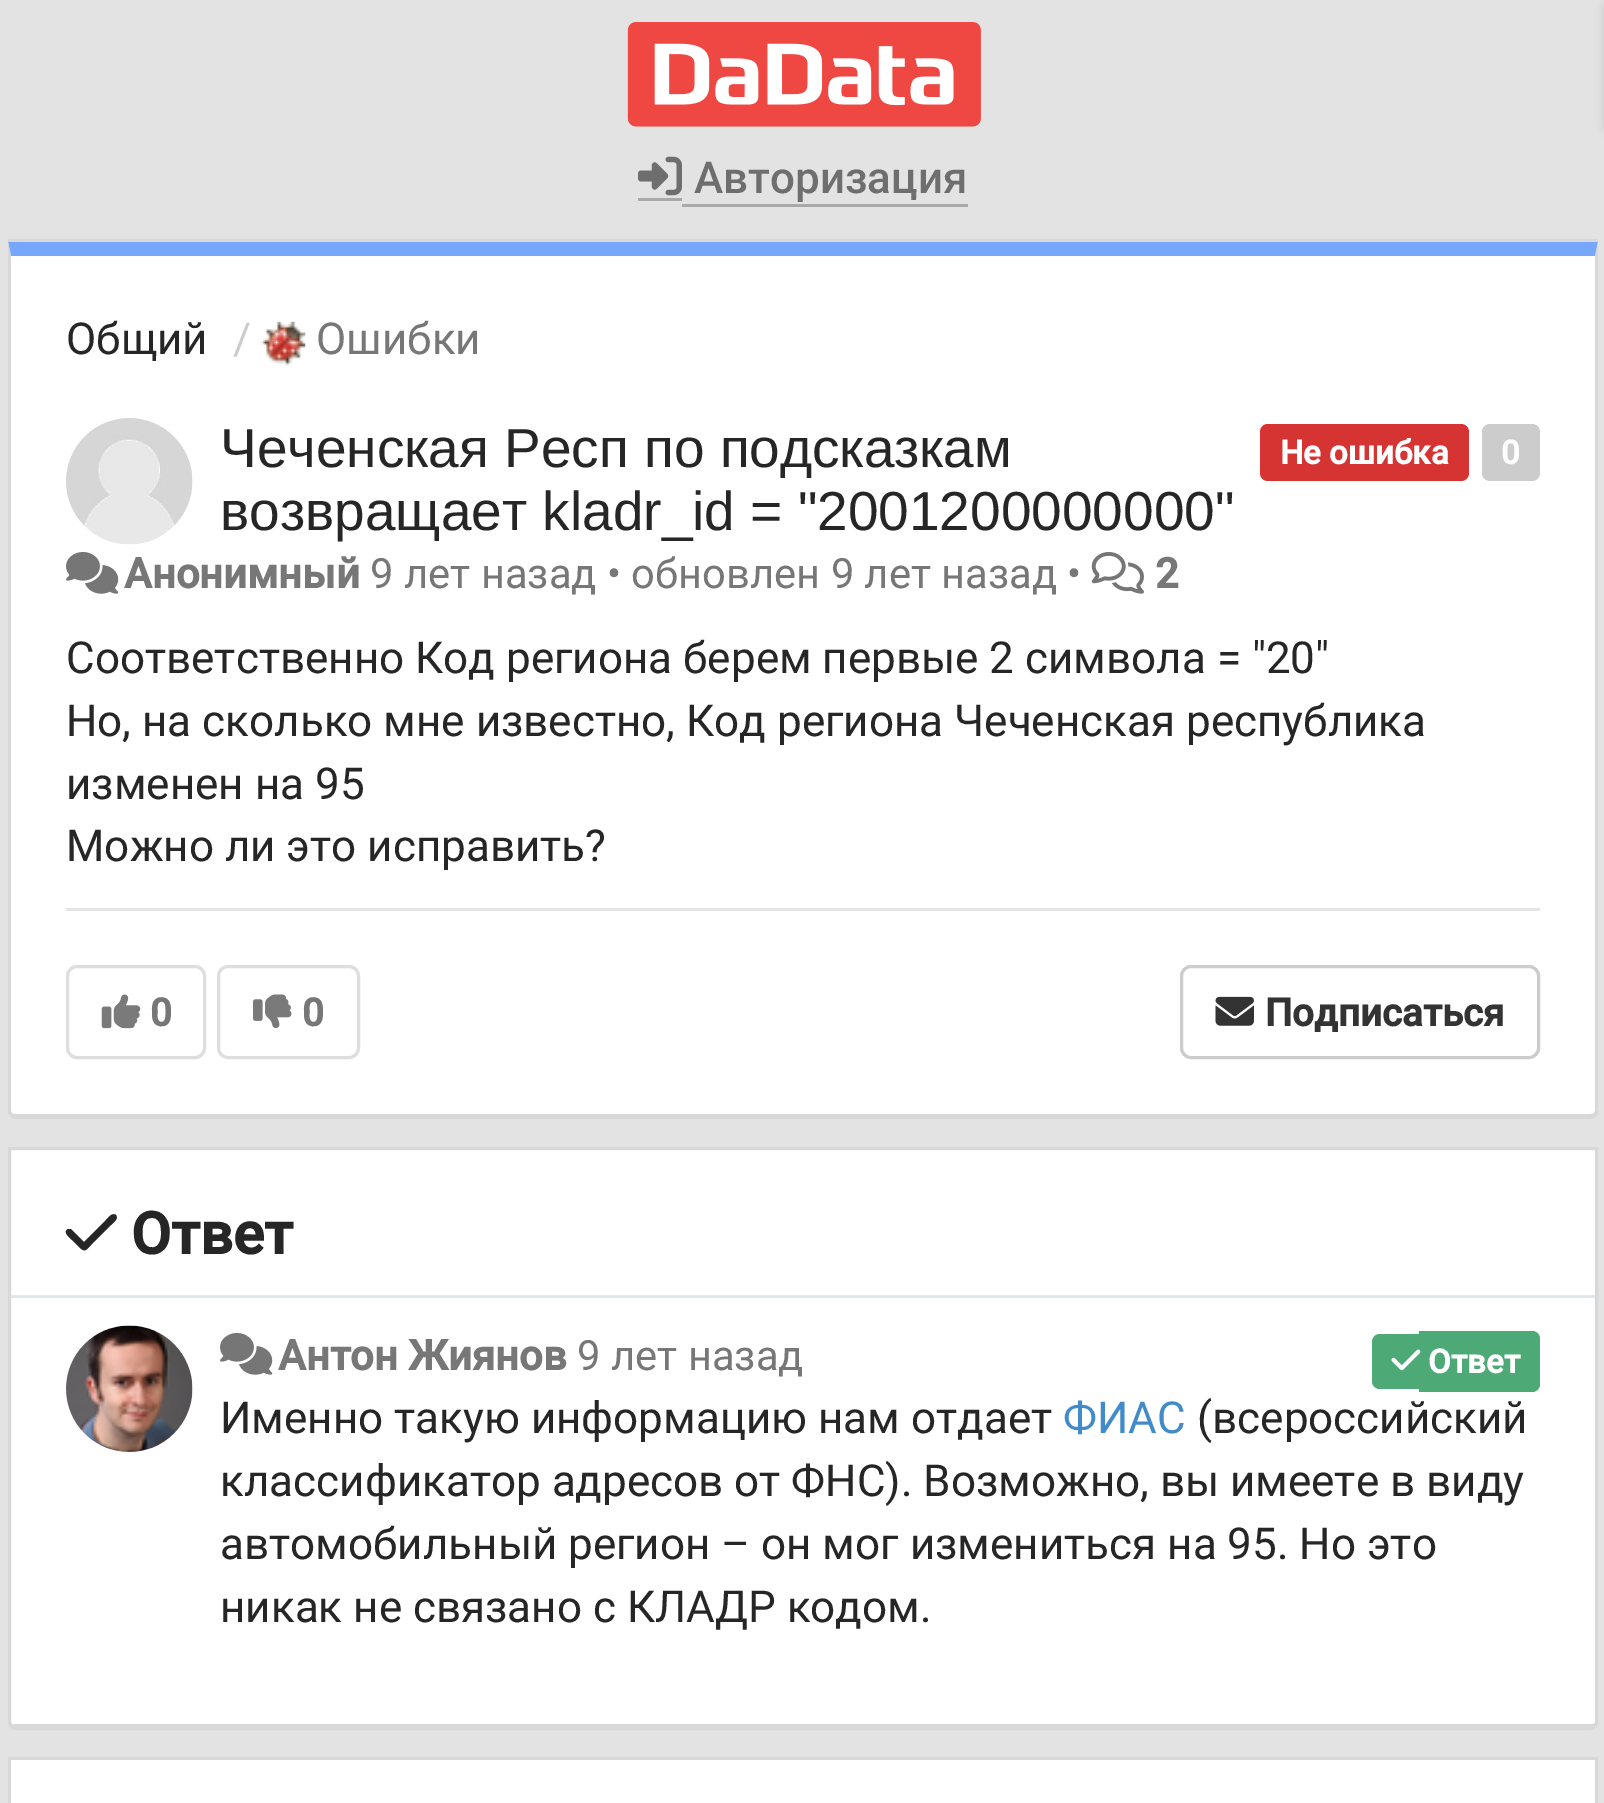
%!PS-Adobe-3.0
%%BoundingBox: 0 0 1604 1803
%%LanguageLevel: 3
%%Pages: 1
%%EndComments
%%BeginProlog
/setink { dup -16 bitshift 255 div exch dup -8 bitshift 255 and 255 div exch 255 and 255 div setrgbcolor } def
/usefont { [ exch dup neg 0 0 3 -1 roll 0 0 ] selectfont } def
/setalpha { dup .setfillconstantalpha .setstrokeconstantalpha } def
/rrect { 5 dict begin { /r /h /w /y /x } { exch def } forall
  x r add y moveto x w add y 2 copy h add r arct x w add y h add x 1 index r arct
  x y h add x y r arct x y 2 copy exch w add exch r arct closepath end } def
/softshadow { 12 dict begin { /a /b /q /h /w /y /x } { exch def } forall gsave /was 0 def
  9 -2 -9 { dup b mul 4 div /e exch def 1 sub .425 mul 2.718 exch exp 1 add a .99 .min exch div /now exch def
    1 1 now sub 1 was sub div sub setalpha /was now def
    w h .min e 2 mul add 0 gt { x e sub y e sub w e 2 mul add h e 2 mul add
      q e add b .6 mul add w h .min 2 div e add .min 0 .max rrect fill } if } for grestore end } def
/drawimage { 5 dict begin { /h /w /y /x /name } { exch def } forall
  gsave x y translate w h scale
  w h 8 [w 0 0 h 0 0] name (r) file false 3 colorimage grestore end } def
%%EndProlog
%%BeginSetup
<< /PageSize [1604 1803] /PageUsesTransparency true >> setpagedevice
%%EndSetup
%%Page: 1 1
0 .pushpdf14devicefilter
0 1803 translate 1 -1 scale
4 setmiterlimit
16#E3E3E3 setink
0 0 1604 1803 rectfill
(img1.raw) 627 22 354 105 drawimage
16#000000 setink
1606 6 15 121 0 5.5 0.15 softshadow
16#A9A9A9 setink
638 198 44 3 rectfill
682 204 286 3 rectfill
(img2.raw) 638 156 44 40 drawimage
/Roboto-Medium 44 usefont
16#6E6E6E setink
694 193 moveto (Авторизация) show
16#D8D8D8 setink
8 239 1590 3 rectfill
16#FFFFFF setink
11 256 moveto 1595 256 lineto 1595 1111 lineto 1595 1113 1593 1114 1590 1114 curveto 16 1114 lineto 13 1114 11 1113 11 1111 curveto closepath fill
16#76A7FA setink
8 242 moveto 11 256 lineto 1595 256 lineto 1598 242 lineto closepath fill
16#D8D8D8 setink
1598 242 moveto 1598 1113 lineto 1596 1116 lineto 1594 1113 lineto 1595 1111 lineto 1595 256 lineto closepath fill
1596 1116 moveto 1595 1118 1592 1119 1590 1119 curveto 16 1119 lineto 14 1119 11 1118 10 1116 curveto 12 1113 lineto 12 1114 14 1114 16 1114 curveto 1590 1114 lineto 1592 1114 1594 1114 1594 1113 curveto closepath fill
11 256 moveto 11 1111 lineto 12 1113 lineto 10 1116 lineto 8 1113 lineto 8 242 lineto closepath fill
/Roboto-Regular 44 usefont
16#262626 setink
66 354 moveto (Общий) show
16#CCCCCC setink
233 354 moveto (/) show
(img3.raw) 261 321 45 45 drawimage
16#777777 setink
316 354 moveto (Ошибки) show
(img4.raw) 66 418 127 127 drawimage
/LiberationSans-Regular 55 usefont
16#262626 setink
220 467 moveto (Чеченская Респ по подсказкам) show
220 530 moveto (возвращает kladr_id = "2001200000000") show
16#D63333 setink
1260 424 209 57 8 rrect fill
/Roboto-Bold 33 usefont
16#FFFFFF setink
1280 464 moveto (Не ошибка) show
16#CCCCCC setink
1482 424 58 57 8 rrect fill
16#FFFFFF setink
1501 464 moveto (0) show
(img5.raw) 66 551 53 43 drawimage
/Roboto-Bold 41.75 usefont
16#777777 setink
124 588 moveto (Анонимный) show
/Roboto-Regular 41.75 usefont
370 588 moveto (9 лет назад • обновлен 9 лет назад •) show
(img6.raw) 1091 551 53 43 drawimage
/Roboto-Bold 41.75 usefont
1155 588 moveto (2) show
/Roboto-Regular 44 usefont
16#262626 setink
[
    [(Соответственно Код региона берем первые 2 символа = "20") 66 673]
    [(Но, на сколько мне известно, Код региона Чеченская республика) 66 736]
    [(изменен на 95) 66 799]
    [(Можно ли это исправить?) 66 861]
] { aload pop moveto show } forall
16#E5E5E5 setink
66 908 1474 3 rectfill
16#DEDEDE setink
3 setlinewidth
67.5 966.5 137 91 9.5 rrect stroke
(img7.raw) 101 994 40 35 drawimage
/Roboto-Bold 38.5 usefont
16#777777 setink
150 1026 moveto (0) show
16#DEDEDE setink
218.5 966.5 140 91 9.5 rrect stroke
(img8.raw) 253 994 39 35 drawimage
16#777777 setink
302 1026 moveto (0) show
16#CCCCCC setink
1181.5 966.5 357 91 9.5 rrect stroke
(img9.raw) 1215 996 39 30 drawimage
16#333333 setink
1265 1026 moveto (Подписаться) show
16#FFFFFF setink
11 1150 moveto 1595 1150 lineto 1595 1722 lineto 1595 1723 1593 1724 1590 1724 curveto 16 1724 lineto 13 1724 11 1723 11 1722 curveto closepath fill
16#D8D8D8 setink
9.5 1148.5 moveto 1596.5 1148.5 lineto 1596.5 1722 lineto 1596.5 1725.5 1593.5 1728.5 1590 1728.5 curveto 16 1728.5 lineto 12.5 1728.5 9.5 1725.5 9.5 1722 curveto closepath stroke
14 1724 1581 3 rectfill
16#262626 setink
116 1215 moveto 119 1219 113 1223 111 1225 curveto 91 1245 lineto 86 1250 85 1253 79 1247 curveto 72 1240 lineto 70 1238 62 1232 68 1229 curveto 69 1229 70 1229 71 1229 curveto 84 1242 lineto 106 1220 lineto 108 1218 112 1212 116 1215 curveto closepath fill
/Roboto-Bold 58 usefont
131 1254 moveto (Ответ) show
16#E1E8ED setink
11 1295 1584 3 rectfill
(img10.raw) 66 1325 127 127 drawimage
(img5.raw) 220 1332 53 43 drawimage
/Roboto-Bold 41.75 usefont
16#777777 setink
278 1370 moveto (Антон Жиянов) show
/Roboto-Regular 41.75 usefont
577 1370 moveto (9 лет назад) show
16#4DAA77 setink
1380 1334 moveto 1419 1334 lineto 1419 1389 lineto 1380 1389 lineto 1375.5 1389 1372 1385.5 1372 1381 curveto 1372 1342 lineto 1372 1337.5 1375.5 1334 1380 1334 curveto closepath fill
1419 1331 moveto 1532 1331 lineto 1536.5 1331 1540 1334.5 1540 1339 curveto 1540 1384 lineto 1540 1388.5 1536.5 1392 1532 1392 curveto 1419 1392 lineto closepath fill
(img11.raw) 1391 1349 30 22 drawimage
/Roboto-Bold 33 usefont
16#FFFFFF setink
1428 1373 moveto (Ответ) show
/Roboto-Regular 44 usefont
16#262626 setink
220 1433 moveto (Именно такую информацию нам отдает) show
16#428BCA setink
1063 1433 moveto (ФИАС) show
16#262626 setink
[
    [(\(всероссийский) 1197 1433]
    [(классификатор адресов от ФНС\). Возможно, вы имеете в виду) 220 1496]
    [(автомобильный регион – он мог измениться на 95. Но это) 220 1559]
    [(никак не связано с КЛАДР кодом.) 220 1622]
] { aload pop moveto show } forall
16#D8D8D8 setink
8 1757 1590 3 rectfill
16#FFFFFF setink
11 1760 1584 43 rectfill
16#D8D8D8 setink
8 1760 moveto 1598 1760 lineto 1598 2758 lineto 1598 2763 1594 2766 1590 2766 curveto 16 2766 lineto 12 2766 8 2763 8 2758 curveto closepath 11 1760 moveto 1595 1760 lineto 1595 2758 lineto 1595 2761 1593 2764 1590 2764 curveto 16 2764 lineto 13 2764 11 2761 11 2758 curveto closepath eofill
.poppdf14devicefilter showpage
%%EOF
